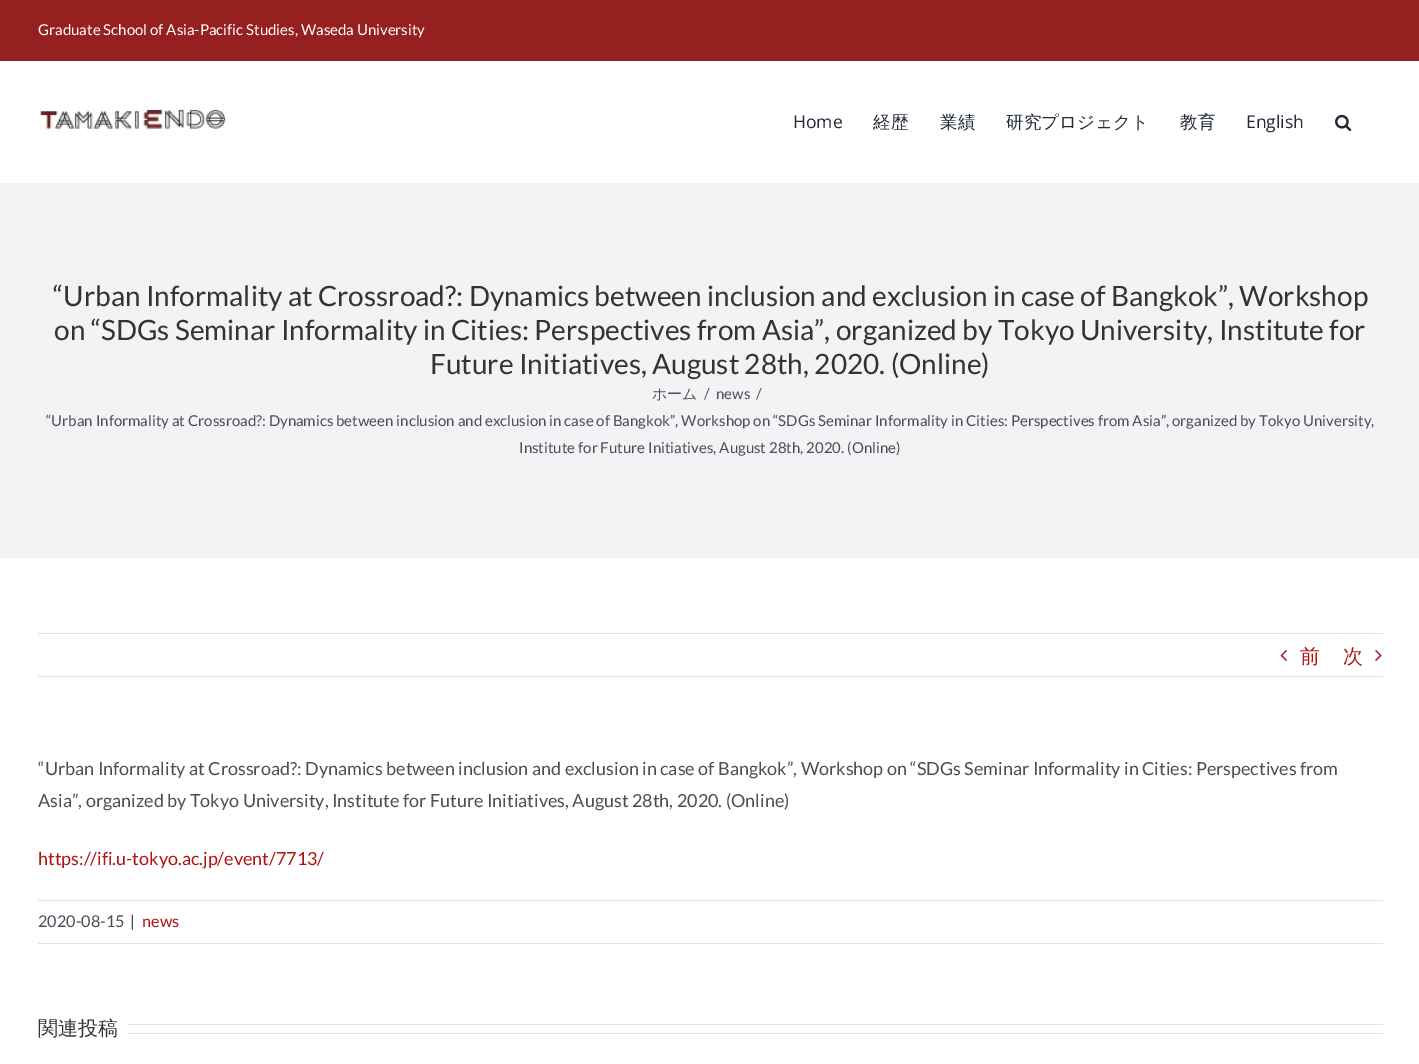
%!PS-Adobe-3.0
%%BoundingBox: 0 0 1419 1064
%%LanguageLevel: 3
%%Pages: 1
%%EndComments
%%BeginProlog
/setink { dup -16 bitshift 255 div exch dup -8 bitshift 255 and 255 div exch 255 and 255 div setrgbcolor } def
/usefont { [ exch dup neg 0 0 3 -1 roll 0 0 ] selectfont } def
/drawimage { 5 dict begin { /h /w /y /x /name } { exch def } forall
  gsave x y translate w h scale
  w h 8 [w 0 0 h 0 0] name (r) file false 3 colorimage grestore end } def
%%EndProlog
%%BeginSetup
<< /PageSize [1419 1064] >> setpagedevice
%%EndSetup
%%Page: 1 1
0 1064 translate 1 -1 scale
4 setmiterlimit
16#FFFFFF setink
0 0 1419 1064 rectfill
16#961F1F setink
0 0 1419 61 rectfill
/Lato-Regular 15 usefont
16#FFFFFF setink
38 35 moveto (Graduate School of Asia-Pacific Studies, Waseda University) show
(img1.raw) 40 109 186 20 drawimage
/OpenSans-Regular 17.5 usefont
16#212934 setink
793 128 moveto (Home) show
/WenQuanYiZenHei-Medium 17.5 usefont
[
    [(経歴) 873 128]
    [(業績) 940 128]
    [(研究プロジェクト) 1006 128]
    [(教育) 1180 128]
] { aload pop moveto show } forall
/OpenSans-Regular 17.5 usefont
1246 128 moveto (English) show
(img2.raw) 1335 114 17 17 drawimage
16#F2F3F5 setink
0 183 1419 375 rectfill
/Lato-Regular 28 usefont
16#333333 setink
[
    [(“Urban Informality at Crossroad?: Dynamics between inclusion and exclusion in case of Bangkok”, Workshop) 53 306]
    [(on “SDGs Seminar Informality in Cities: Perspectives from Asia”, organized by Tokyo University, Institute for) 54 340]
    [(Future Initiatives, August 28th, 2020. \(Online\)) 430 374]
] { aload pop moveto show } forall
/WenQuanYiZenHei-Medium 15 usefont
16#4A4E57 setink
652 399 moveto (ホーム) show
/Lato-Regular 15 usefont
[
    [(/) 704 399]
    [(news) 716 399]
    [(/) 756 399]
    [(“Urban Informality at Crossroad?: Dynamics between inclusion and exclusion in case of Bangkok”, Workshop on “SDGs Seminar Informality in Cities: Perspectives from Asia”, organized by Tokyo University,) 46 426]
    [(Institute for Future Initiatives, August 28th, 2020. \(Online\)) 519 453]
] { aload pop moveto show } forall
16#E2E2E2 setink
38 633 1345 1 rectfill
38 676 1345 1 rectfill
(img3.raw) 1280 650 7 11 drawimage
/WenQuanYiZenHei-Medium 20 usefont
16#B01514 setink
1300 663 moveto (前) show
1343 663 moveto (次) show
(img4.raw) 1375 650 7 11 drawimage
/Lato-Regular 18 usefont
16#4A4E57 setink
38 775 moveto (“Urban Informality at Crossroad?: Dynamics between inclusion and exclusion in case of Bangkok”, Workshop on “SDGs Seminar Informality in Cities: Perspectives from) show
38 807 moveto (Asia”, organized by Tokyo University, Institute for Future Initiatives, August 28th, 2020. \(Online\)) show
16#B01514 setink
38 865 moveto (https://ifi.u-tokyo.ac.jp/event/7713/) show
16#E2E2E2 setink
38 900 1345 1 rectfill
38 943 1345 1 rectfill
/Lato-Regular 16.25 usefont
16#4A4E57 setink
38 927 moveto (2020-08-15) show
130 927 moveto (|) show
16#B01514 setink
142 927 moveto (news) show
/WenQuanYiZenHei-Medium 20 usefont
16#333333 setink
38 1035 moveto (関連投稿) show
16#E2E2E2 setink
128 1024 1255 1 rectfill
128 1033 1255 1 rectfill
showpage
%%EOF
